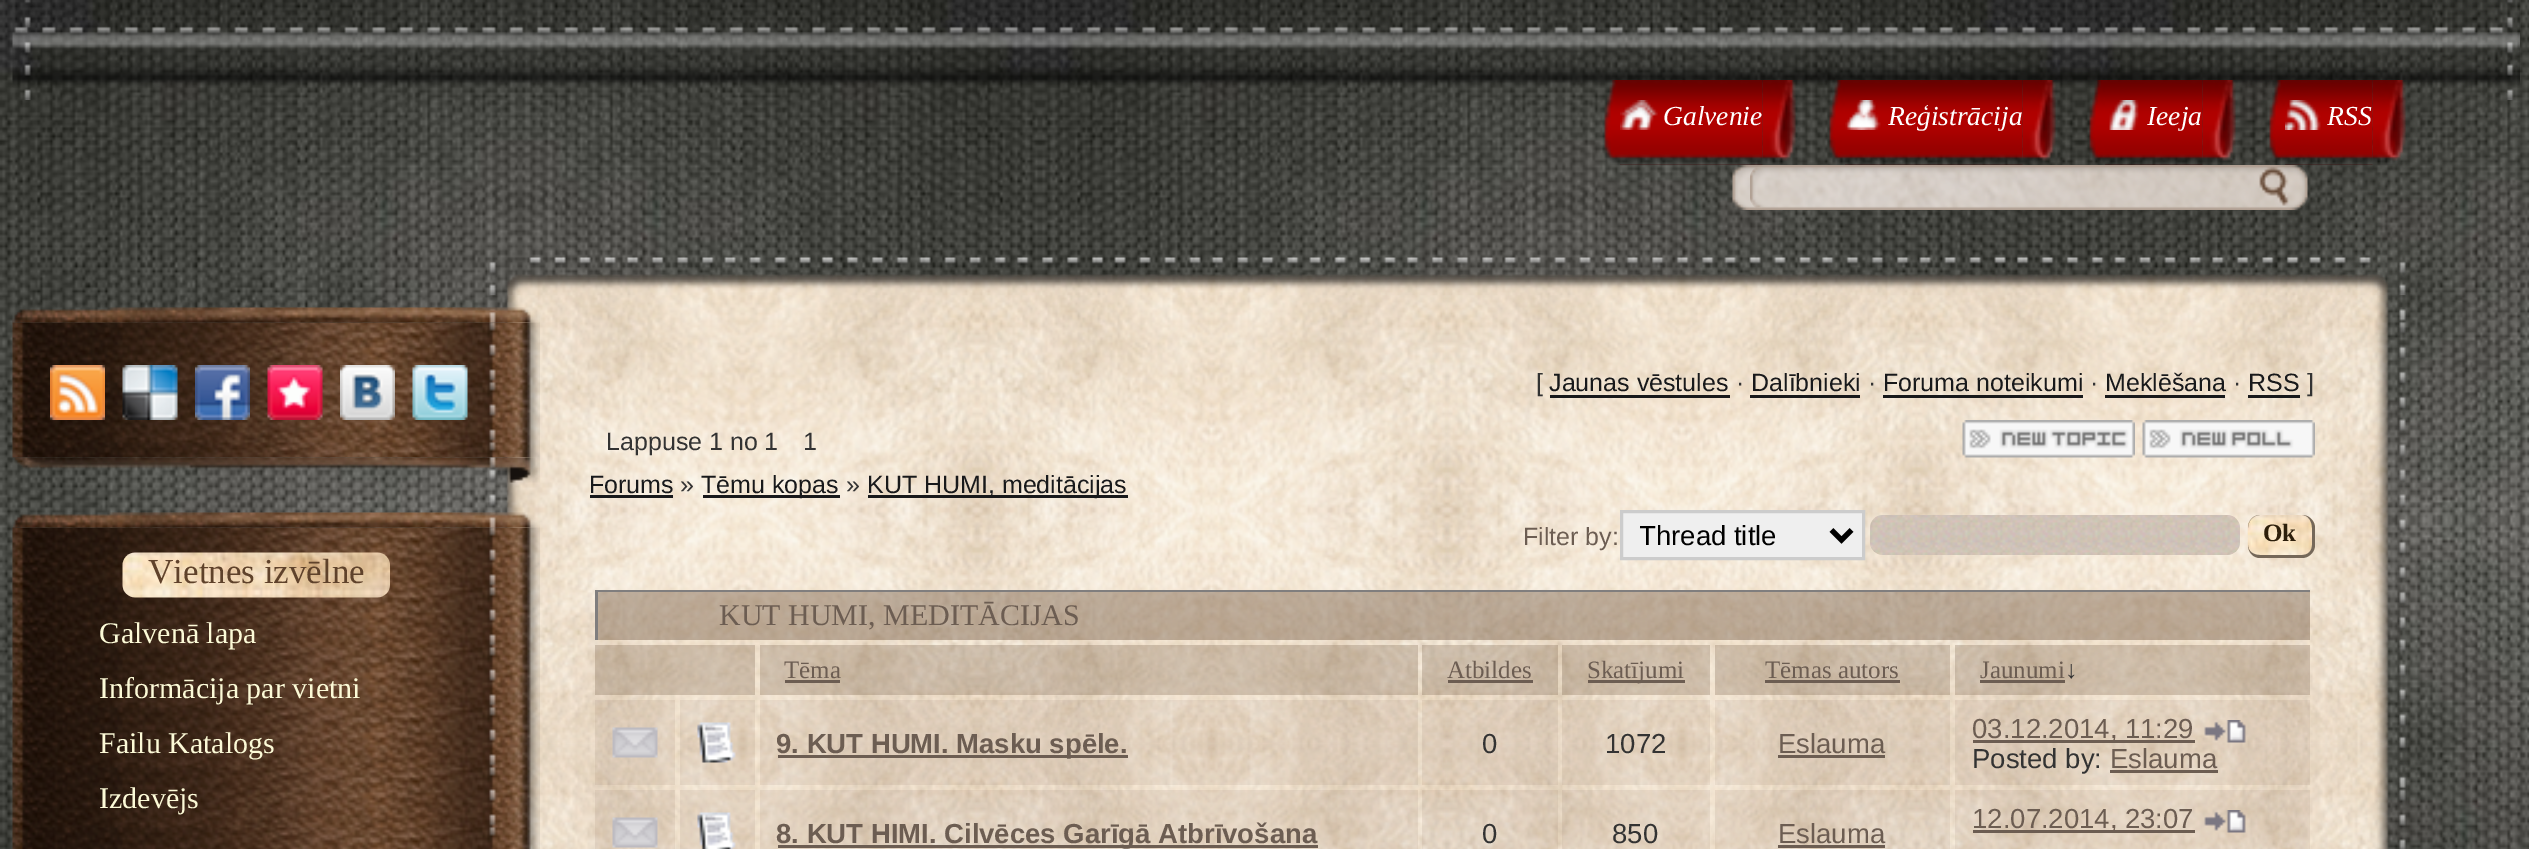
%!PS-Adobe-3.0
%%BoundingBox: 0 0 2529 849
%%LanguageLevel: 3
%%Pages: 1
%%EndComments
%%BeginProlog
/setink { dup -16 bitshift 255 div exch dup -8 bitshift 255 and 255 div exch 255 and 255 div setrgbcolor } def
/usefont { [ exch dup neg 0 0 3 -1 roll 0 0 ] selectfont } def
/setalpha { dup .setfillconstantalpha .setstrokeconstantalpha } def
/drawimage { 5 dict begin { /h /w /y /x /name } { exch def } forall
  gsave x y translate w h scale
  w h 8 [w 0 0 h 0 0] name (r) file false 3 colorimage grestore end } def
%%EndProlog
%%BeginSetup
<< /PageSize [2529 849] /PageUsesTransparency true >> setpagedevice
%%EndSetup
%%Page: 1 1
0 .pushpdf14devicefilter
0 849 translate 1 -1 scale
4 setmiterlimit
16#FFFFFF setink
0 0 2529 849 rectfill
(img1.raw) 0 0 2529 849 drawimage
(img2.raw) 12 0 2508 100 drawimage
(img3.raw) 1603 80 17 85 drawimage
(img4.raw) 1620 80 143 85 drawimage
(img5.raw) 1620 100 38 30 drawimage
/LiberationSerif-Italic 27.5 usefont
1663 125 moveto (Galvenie) show
(img6.raw) 1762 80 34 85 drawimage
(img7.raw) 1829 80 16 85 drawimage
(img8.raw) 1845 80 178 85 drawimage
(img9.raw) 1845 100 36 30 drawimage
1888 125 moveto (Reģistrācija) show
(img10.raw) 2022 80 34 85 drawimage
(img11.raw) 2089 80 16 85 drawimage
(img12.raw) 2105 80 98 85 drawimage
(img13.raw) 2109 100 30 30 drawimage
2147 125 moveto (Ieeja) show
(img14.raw) 2202 80 34 85 drawimage
(img15.raw) 2268 80 17 85 drawimage
(img16.raw) 2285 80 88 85 drawimage
(img17.raw) 2285 100 36 30 drawimage
2327 125 moveto (RSS) show
(img18.raw) 2372 80 34 85 drawimage
(img19.raw) 1732 165 557 45 drawimage
(img20.raw) 1750 165 558 45 drawimage
(img21.raw) 488 257 1919 38 drawimage
(img22.raw) 488 295 1919 554 drawimage
(img24.raw) 12 322 528 136 drawimage
(img23.raw) 12 307 528 16 drawimage
(img25.raw) 50 365 55 55 drawimage
(img26.raw) 122 365 56 55 drawimage
(img27.raw) 195 365 55 55 drawimage
(img28.raw) 267 365 56 55 drawimage
(img29.raw) 340 365 55 55 drawimage
(img30.raw) 412 365 56 55 drawimage
(img31.raw) 14 457 526 26 drawimage
(img33.raw) 12 527 528 322 drawimage
(img32.raw) 13 512 527 16 drawimage
(img34.raw) 122 552 268 46 drawimage
/LiberationSerif-Regular 35 usefont
16#5F422B setink
148 583 moveto (Vietnes izvēlne) show
/LiberationSerif-Regular 30 usefont
16#FCFAD7 setink
[
    [(Galvenā lapa) 99 643]
    [(Informācija par vietni) 99 698]
    [(Failu Katalogs) 99 753]
    [(Izdevējs) 99 808]
] { aload pop moveto show } forall
/LiberationSans-Regular 25 usefont
16#333333 setink
1536 391 moveto ([) show
16#18191B setink
1549 391 moveto (Jaunas vēstules) show
1550 395 180 3 rectfill
16#333333 setink
1736 391 moveto (·) show
16#18191B setink
1751 391 moveto (Dalībnieki) show
1750 395 110 3 rectfill
16#333333 setink
1868 391 moveto (·) show
16#18191B setink
1883 391 moveto (Foruma noteikumi) show
1883 395 200 3 rectfill
16#333333 setink
2090 391 moveto (·) show
16#18191B setink
2105 391 moveto (Meklēšana) show
2105 395 120 3 rectfill
16#333333 setink
2233 391 moveto (·) show
16#18191B setink
2248 391 moveto (RSS) show
2248 395 52 3 rectfill
16#333333 setink
[
    [(]) 2307 391]
    [(Lappuse 1 no 1) 606 450]
    [(1) 803 450]
] { aload pop moveto show } forall
(img35.raw) 1962 420 173 38 drawimage
(img36.raw) 2142 420 173 38 drawimage
16#18191B setink
589 493 moveto (Forums) show
590 495 83 3 rectfill
16#333333 setink
680 493 moveto (») show
16#18191B setink
703 495 137 3 rectfill
701 493 moveto (Tēmu kopas) show
16#333333 setink
846 493 moveto (») show
16#18191B setink
868 495 260 3 rectfill
867 493 moveto (KUT HUMI, meditācijas) show
16#6C5D52 setink
1523 545 moveto (Filter by:) show
16#EFEFEF setink
1621.5 511.5 moveto 1863.5 511.5 lineto 1863.5 558.5 lineto 1621.5 558.5 lineto closepath gsave fill grestore
16#CCCCCC setink
3 setlinewidth
stroke
16#000000 setink
5 setlinewidth
1831.5 530 moveto 1841.5 540 lineto 1851.5 530 lineto stroke
gsave
1640 518 175 35 rectclip
/LiberationSans-Regular 27.5 usefont
1639 545 moveto (Thread title) show
grestore
(img37.raw) 1870 515 370 40 drawimage
(img38.raw) 2247 515 68 43 drawimage
16#756859 setink
2260 515 moveto 2302 515 lineto 2309 515 2315 521 2315 528 curveto 2315 545 lineto 2315 552 2309 558 2302 558 curveto 2260 558 lineto 2253 558 2248 552 2248 545 curveto 2248 528 lineto 2248 521 2253 515 2260 515 curveto closepath 2260 515 moveto 2302 515 lineto 2308 515 2312 521 2312 528 curveto 2312 545 lineto 2312 551 2308 555 2302 555 curveto 2260 555 lineto 2253 555 2248 551 2248 545 curveto 2248 528 lineto 2248 521 2253 515 2260 515 curveto closepath eofill
/LiberationSerif-Bold 25 usefont
16#2D1F0B setink
2263 541 moveto (Ok) show
0.38 setalpha
16#614732 setink
598 592 1712 48 rectfill
gsave
595 590 1715 50 rectclip
1 setalpha
16#807E7E setink
348 342 moveto 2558 342 lineto 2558 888 lineto 348 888 lineto closepath 598 592 moveto 2312 592 lineto 2312 642 lineto 598 642 lineto closepath eofill
grestore
/LiberationSerif-Regular 30 usefont
1 setalpha
16#6C5D52 setink
719 625 moveto (KUT HUMI, MEDITĀCIJAS) show
0.24 setalpha
16#604732 setink
595 645 160 50 rectfill
760 645 658 50 rectfill
/LiberationSerif-Regular 25 usefont
1 setalpha
16#6C5D52 setink
784 678 moveto (Tēma) show
785 680 55 3 rectfill
0.24 setalpha
16#604732 setink
1422 645 136 50 rectfill
1 setalpha
16#6C5D52 setink
1447 678 moveto (Atbildes) show
[
    [1448 680 85 3 16#6C5D52]
] { aload pop setink rectfill } forall
0.24 setalpha
[
    [1562 645 148 50 16#604732]
] { aload pop setink rectfill } forall
1 setalpha
[
    [1588 680 97 3 16#6C5D52]
] { aload pop setink rectfill } forall
1587 678 moveto (Skatījumi) show
0.24 setalpha
16#604732 setink
1715 645 235 50 rectfill
1 setalpha
16#6C5D52 setink
1765 678 moveto (Tēmas autors) show
1765 680 135 3 rectfill
0.24 setalpha
16#604732 setink
1955 645 355 50 rectfill
1 setalpha
16#6C5D52 setink
1980 678 moveto (Jaunumi) show
1980 680 85 3 rectfill
16#333333 setink
2065 678 moveto (↓) show
0.09 setalpha
16#644337 setink
595 700 80 85 rectfill
1 setalpha
(img39.raw) 612 727 46 31 drawimage
0.09 setalpha
680 700 75 85 rectfill
1 setalpha
(img40.raw) 697 722 39 41 drawimage
0.09 setalpha
760 700 658 85 rectfill
1 setalpha
16#6C5D52 setink
778 755 350 3 rectfill
/LiberationSans-Bold 27.5 usefont
776 753 moveto (9. KUT HUMI. Masku spēle.) show
0.09 setalpha
16#644337 setink
1422 700 136 85 rectfill
/LiberationSans-Regular 27.5 usefont
1 setalpha
16#333333 setink
1482 753 moveto (0) show
0.09 setalpha
16#644337 setink
1562 700 148 85 rectfill
1 setalpha
16#333333 setink
1605 753 moveto (1072) show
0.09 setalpha
16#644337 setink
1715 700 235 85 rectfill
1 setalpha
16#6C5D52 setink
1778 753 moveto (Eslauma) show
[
    [1778 755 107 3 16#6C5D52]
] { aload pop setink rectfill } forall
0.09 setalpha
[
    [1955 700 355 85 16#644337]
] { aload pop setink rectfill } forall
1 setalpha
[
    [1973 740 222 3 16#6C5D52]
] { aload pop setink rectfill } forall
1972 738 moveto (03.12.2014, 11:29) show
(img41.raw) 2204 720 42 23 drawimage
16#333333 setink
1972 768 moveto (Posted by:) show
16#6C5D52 setink
2110 768 moveto (Eslauma) show
2110 770 108 3 rectfill
0.09 setalpha
16#644337 setink
595 790 80 59 rectfill
1 setalpha
(img42.raw) 612 817 46 31 drawimage
0.09 setalpha
680 790 75 59 rectfill
1 setalpha
(img43.raw) 697 812 39 37 drawimage
0.09 setalpha
760 790 658 59 rectfill
1 setalpha
16#6C5D52 setink
778 845 540 3 rectfill
/LiberationSans-Bold 27.5 usefont
776 843 moveto (8. KUT HIMI. Cilvēces Garīgā Atbrīvošana) show
0.09 setalpha
16#644337 setink
1422 790 136 59 rectfill
/LiberationSans-Regular 27.5 usefont
1 setalpha
16#333333 setink
1482 843 moveto (0) show
0.09 setalpha
16#644337 setink
1562 790 148 59 rectfill
1 setalpha
16#333333 setink
1612 843 moveto (850) show
0.09 setalpha
16#644337 setink
1715 790 235 59 rectfill
1 setalpha
16#6C5D52 setink
1778 843 moveto (Eslauma) show
[
    [1778 845 107 3 16#6C5D52]
] { aload pop setink rectfill } forall
0.09 setalpha
[
    [1955 790 355 59 16#644337]
] { aload pop setink rectfill } forall
1 setalpha
[
    [1973 830 222 3 16#6C5D52]
] { aload pop setink rectfill } forall
1972 828 moveto (12.07.2014, 23:07) show
(img44.raw) 2204 810 42 23 drawimage
.poppdf14devicefilter showpage
%%EOF
